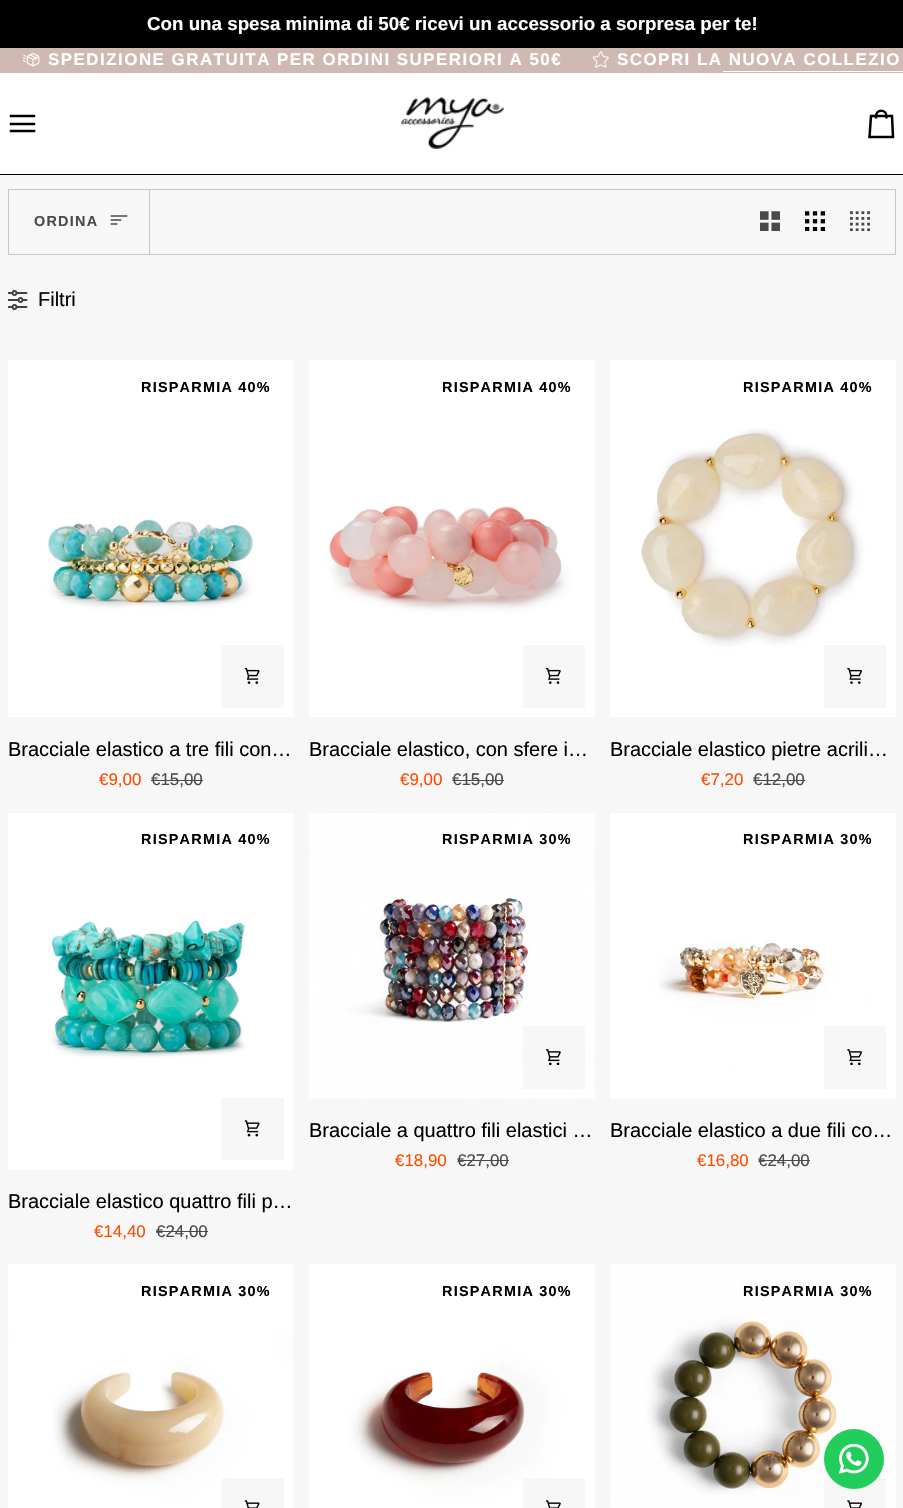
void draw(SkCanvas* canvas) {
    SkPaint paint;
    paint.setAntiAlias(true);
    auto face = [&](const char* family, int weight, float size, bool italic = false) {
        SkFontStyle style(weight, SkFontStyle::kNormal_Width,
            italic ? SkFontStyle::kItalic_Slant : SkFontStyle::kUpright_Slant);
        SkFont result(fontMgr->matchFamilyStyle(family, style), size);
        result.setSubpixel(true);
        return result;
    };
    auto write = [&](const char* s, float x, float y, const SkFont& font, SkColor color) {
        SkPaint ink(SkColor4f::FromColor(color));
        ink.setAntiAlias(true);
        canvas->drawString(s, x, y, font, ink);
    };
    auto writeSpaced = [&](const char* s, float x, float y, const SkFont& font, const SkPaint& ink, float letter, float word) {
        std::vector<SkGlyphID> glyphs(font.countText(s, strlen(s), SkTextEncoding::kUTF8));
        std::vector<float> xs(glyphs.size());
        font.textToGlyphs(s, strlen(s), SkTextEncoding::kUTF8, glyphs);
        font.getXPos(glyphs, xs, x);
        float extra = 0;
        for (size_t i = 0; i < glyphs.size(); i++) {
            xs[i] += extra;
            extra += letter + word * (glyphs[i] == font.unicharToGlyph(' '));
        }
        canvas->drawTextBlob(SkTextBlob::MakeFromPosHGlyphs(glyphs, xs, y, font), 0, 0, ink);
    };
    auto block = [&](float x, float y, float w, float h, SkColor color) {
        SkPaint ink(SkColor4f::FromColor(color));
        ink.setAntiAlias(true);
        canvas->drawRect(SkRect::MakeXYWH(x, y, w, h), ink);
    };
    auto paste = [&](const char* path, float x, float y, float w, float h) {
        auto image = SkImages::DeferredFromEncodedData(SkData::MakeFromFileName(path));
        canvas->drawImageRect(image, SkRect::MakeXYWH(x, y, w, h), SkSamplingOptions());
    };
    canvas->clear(SK_ColorWHITE);
    block(0, 0, 903, 48, SK_ColorBLACK);
    auto kFont1 = face("Liberation Sans", 700, 18.75f);
    write("Con una spesa minima di 50€ ricevi un accessorio a sorpresa per te!", 147, 30, kFont1, SK_ColorWHITE);
    block(0, 48, 903, 25, SkColorSetRGB(208, 185, 178));
    paste("pic1.png", 23, 53, 17, 14);
    auto kFont2 = face("Liberation Sans", 700, 16.9f);
    paint.setColor(SK_ColorWHITE);
    writeSpaced("SPEDIZIONE GRATUITA PER ORDINI SUPERIORI A 50€", 48, 65, kFont2, paint, 1.5f, 0);
    paste("pic2.png", 593, 51, 16, 17);
    writeSpaced("SCOPRI LA NUOVA COLLEZIO", 617, 65, kFont2, paint, 1.5f, 0);
    block(723, 71, 180, 1, SK_ColorWHITE);
    block(0, 174, 903, 1, SK_ColorBLACK);
    paint.setStyle(SkPaint::kStroke_Style);
    paint.setStrokeWidth(2.5f);
    paint.setStrokeCap(SkPaint::kSquare_Cap);
    paint.setColor(SK_ColorBLACK);
    canvas->drawPath(SkPathBuilder().moveTo(34, 116).lineTo(11, 116).moveTo(34, 124).lineTo(11, 124).moveTo(34, 131).lineTo(11, 131).detach(), paint);
    paste("pic3.png", 401, 97, 103, 52);
    paint.setStrokeCap(SkPaint::kButt_Cap);
    canvas->drawPath(SkPathBuilder().moveTo(886.5f, 118.5f).lineTo(886.5f, 116).lineTo(892, 116).lineTo(893, 137).lineTo(869.5f, 137).lineTo(871, 116).lineTo(876, 116).cubicTo(876, 109, 886.5f, 109, 886.5f, 116).lineTo(876, 116).lineTo(876, 118.5f).detach(), paint);
    block(0, 175, 903, 1333, SkColorSetRGB(247, 247, 247));
    paint.setStrokeWidth(1);
    paint.setColor(SkColorSetRGB(198, 198, 198));
    canvas->drawRect(SkRect::MakeXYWH(8.5f, 189.5f, 887, 65), paint);
    block(149, 190, 1, 64, SkColorSetRGB(198, 198, 198));
    auto kFont3 = face("Liberation Sans", 700, 14.4f);
    paint.setStyle(SkPaint::kFill_Style);
    paint.setColor(SkColorSetRGB(74, 74, 74));
    writeSpaced("ORDINA", 34, 226, kFont3, paint, 1.25f, 0);
    paint.setStyle(SkPaint::kStroke_Style);
    paint.setStrokeWidth(1.7f);
    paint.setStrokeCap(SkPaint::kSquare_Cap);
    canvas->drawPath(SkPathBuilder().moveTo(126.5f, 216).lineTo(111.5f, 216).moveTo(120.5f, 220).lineTo(111.5f, 220).moveTo(116.5f, 224).lineTo(111.5f, 224).detach(), paint);
    paste("pic4.png", 760, 211, 20, 20);
    paste("pic5.png", 805, 211, 20, 20);
    paste("pic6.png", 850, 211, 20, 20);
    paste("pic7.png", 8, 290, 20, 20);
    auto kFont4 = face("Liberation Sans", 400, 20);
    write("Filtri", 38, 306, kFont4, SK_ColorBLACK);
    paste("pic8.png", 8, 360, 286, 357);
    paint.setStyle(SkPaint::kFill_Style);
    paint.setColor(SK_ColorBLACK);
    writeSpaced("RISPARMIA 40%", 141, 392, kFont3, paint, 1.25f, 0);
    block(221, 645, 63, 63, SkColorSetRGB(247, 247, 247));
    paste("pic9.png", 244, 668, 16, 16);
    write("Bracciale elastico a tre fili con…", 8, 756, kFont4, SK_ColorBLACK);
    auto kFont5 = face("Liberation Sans", 400, 16.9f);
    write("€9,00", 99, 785, kFont5, SkColorSetRGB(255, 75, 0));
    write("€15,00", 151, 785, kFont5, SkColorSetRGB(74, 74, 74));
    block(151, 780, 52, 1, SkColorSetRGB(74, 74, 74));
    paste("pic10.png", 309, 360, 286, 357);
    writeSpaced("RISPARMIA 40%", 442, 392, kFont3, paint, 1.25f, 0);
    block(523, 645, 62, 63, SkColorSetRGB(247, 247, 247));
    paste("pic11.png", 546, 668, 15, 16);
    write("Bracciale elastico, con sfere i…", 309, 756, kFont4, SK_ColorBLACK);
    write("€9,00", 400, 785, kFont5, SkColorSetRGB(255, 75, 0));
    write("€15,00", 452, 785, kFont5, SkColorSetRGB(74, 74, 74));
    block(453, 780, 51, 1, SkColorSetRGB(74, 74, 74));
    paste("pic12.png", 610, 360, 286, 357);
    writeSpaced("RISPARMIA 40%", 743, 392, kFont3, paint, 1.25f, 0);
    block(824, 645, 62, 63, SkColorSetRGB(247, 247, 247));
    paste("pic13.png", 847, 668, 15, 16);
    write("Bracciale elastico pietre acrili…", 610, 756, kFont4, SK_ColorBLACK);
    write("€7,20", 701, 785, kFont5, SkColorSetRGB(255, 75, 0));
    write("€12,00", 753, 785, kFont5, SkColorSetRGB(74, 74, 74));
    block(754, 780, 51, 1, SkColorSetRGB(74, 74, 74));
    paste("pic14.png", 8, 813, 286, 357);
    writeSpaced("RISPARMIA 40%", 141, 844, kFont3, paint, 1.25f, 0);
    block(221, 1098, 63, 62, SkColorSetRGB(247, 247, 247));
    paste("pic15.png", 244, 1120, 16, 17);
    write("Bracciale elastico quattro fili p…", 8, 1208, kFont4, SK_ColorBLACK);
    write("€14,40", 94, 1237, kFont5, SkColorSetRGB(255, 75, 0));
    write("€24,00", 156, 1237, kFont5, SkColorSetRGB(74, 74, 74));
    block(156, 1231, 52, 1, SkColorSetRGB(74, 74, 74));
    paste("pic16.png", 309, 813, 286, 286);
    writeSpaced("RISPARMIA 30%", 442, 844, kFont3, paint, 1.25f, 0);
    block(523, 1026, 62, 63, SkColorSetRGB(247, 247, 247));
    paste("pic17.png", 546, 1049, 15, 16);
    write("Bracciale a quattro fili elastici …", 309, 1137, kFont4, SK_ColorBLACK);
    write("€18,90", 395, 1166, kFont5, SkColorSetRGB(255, 75, 0));
    write("€27,00", 457, 1166, kFont5, SkColorSetRGB(74, 74, 74));
    block(458, 1160, 51, 1, SkColorSetRGB(74, 74, 74));
    paste("pic18.png", 610, 813, 286, 286);
    writeSpaced("RISPARMIA 30%", 743, 844, kFont3, paint, 1.25f, 0);
    block(824, 1026, 62, 63, SkColorSetRGB(247, 247, 247));
    paste("pic19.png", 847, 1049, 15, 16);
    write("Bracciale elastico a due fili co…", 610, 1137, kFont4, SK_ColorBLACK);
    write("€16,80", 697, 1166, kFont5, SkColorSetRGB(255, 75, 0));
    write("€24,00", 758, 1166, kFont5, SkColorSetRGB(74, 74, 74));
    block(759, 1160, 51, 1, SkColorSetRGB(74, 74, 74));
    paste("pic20.png", 8, 1264, 286, 244);
    writeSpaced("RISPARMIA 30%", 141, 1296, kFont3, paint, 1.25f, 0);
    block(221, 1478, 63, 30, SkColorSetRGB(247, 247, 247));
    paste("pic21.png", 244, 1500, 16, 8);
    paste("pic22.png", 309, 1264, 286, 244);
    writeSpaced("RISPARMIA 30%", 442, 1296, kFont3, paint, 1.25f, 0);
    block(523, 1478, 62, 30, SkColorSetRGB(247, 247, 247));
    paste("pic23.png", 546, 1500, 15, 8);
    paste("pic24.png", 610, 1264, 286, 244);
    writeSpaced("RISPARMIA 30%", 743, 1296, kFont3, paint, 1.25f, 0);
    block(824, 1478, 62, 30, SkColorSetRGB(247, 247, 247));
    paste("pic25.png", 847, 1500, 15, 8);
    paint.setColor(SkColorSetRGB(34, 205, 91));
    canvas->drawCircle(854, 1459, 30, paint);
    paste("pic26.png", 839, 1444, 30, 30);
}
